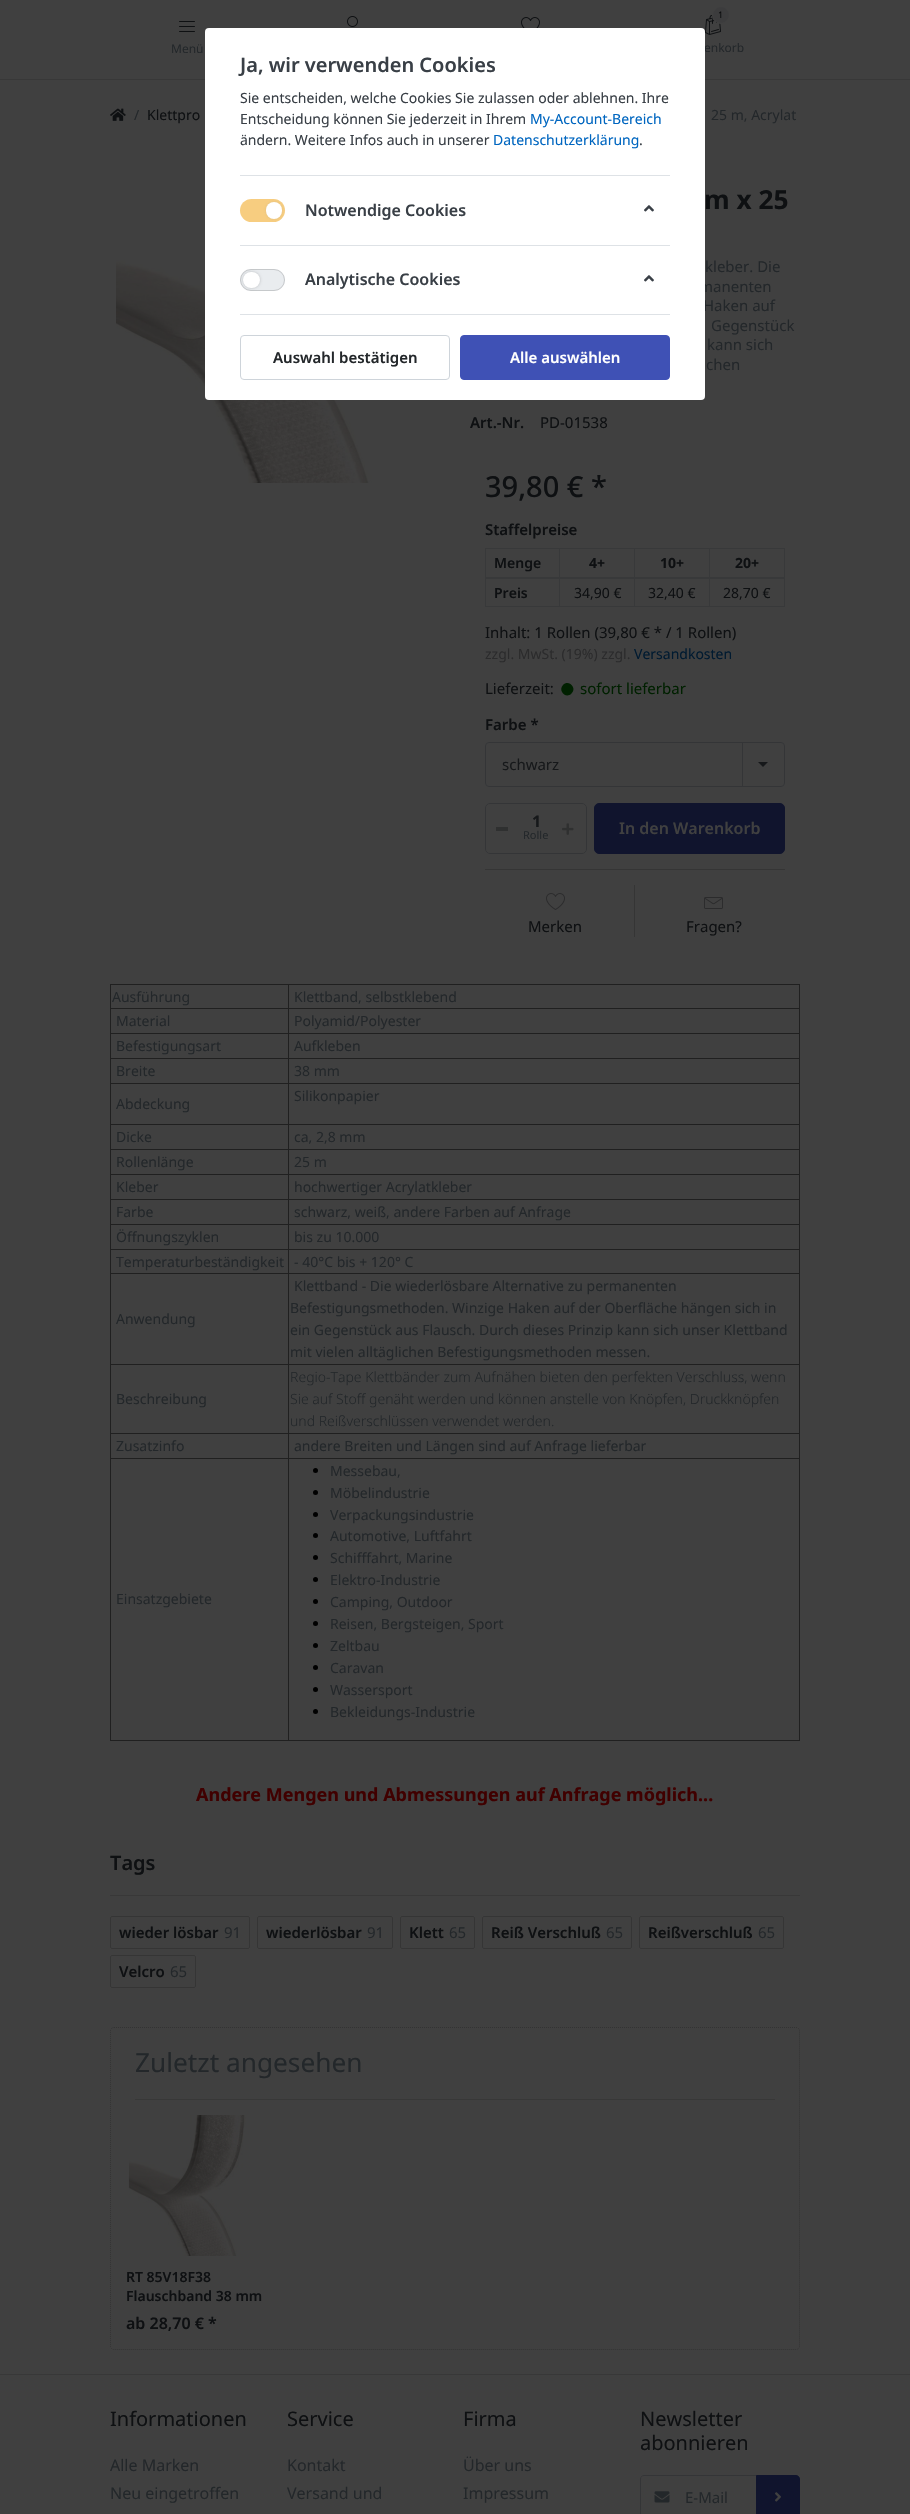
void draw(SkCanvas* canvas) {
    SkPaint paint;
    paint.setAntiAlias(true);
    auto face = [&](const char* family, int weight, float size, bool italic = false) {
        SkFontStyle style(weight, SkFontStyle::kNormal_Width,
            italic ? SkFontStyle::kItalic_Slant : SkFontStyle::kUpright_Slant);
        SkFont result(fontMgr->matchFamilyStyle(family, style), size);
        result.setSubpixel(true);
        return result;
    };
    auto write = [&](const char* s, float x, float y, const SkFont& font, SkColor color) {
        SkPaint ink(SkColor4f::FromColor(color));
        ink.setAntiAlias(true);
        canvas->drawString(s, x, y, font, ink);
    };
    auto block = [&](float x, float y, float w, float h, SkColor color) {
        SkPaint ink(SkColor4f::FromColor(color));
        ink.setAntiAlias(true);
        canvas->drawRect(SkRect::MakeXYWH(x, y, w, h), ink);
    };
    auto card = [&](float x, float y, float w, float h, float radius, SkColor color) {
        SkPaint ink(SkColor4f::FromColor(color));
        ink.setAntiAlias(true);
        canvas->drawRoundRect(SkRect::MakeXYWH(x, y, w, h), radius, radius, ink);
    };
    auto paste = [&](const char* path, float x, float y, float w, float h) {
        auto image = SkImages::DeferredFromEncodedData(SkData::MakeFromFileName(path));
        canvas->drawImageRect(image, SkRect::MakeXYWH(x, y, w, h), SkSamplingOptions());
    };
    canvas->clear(SkColorSetRGB(64, 64, 64));
    block(0, 79, 910, 1, SkColorSetRGB(56, 56, 56));
    paste("pic1.png", 347, 16, 11, 11);
    paste("pic2.png", 521, 17, 19, 11);
    paste("pic3.png", 705, 15, 16, 20);
    paint.setColor(SkColorSetRGB(60, 60, 61));
    canvas->drawCircle(721, 15, 8.5f, paint);
    paint.setStyle(SkPaint::kStroke_Style);
    paint.setStrokeWidth(1);
    paint.setColor(SkColorSetRGB(64, 64, 64));
    canvas->drawCircle(721, 15, 8.5f, paint);
    auto kFont1 = face("Noto Sans", 400, 9);
    write("1", 718, 18, kFont1, SkColorSetRGB(9, 10, 11));
    auto kFont2 = face("Noto Sans", 400, 12);
    write("enkorb", 704, 52, kFont2, SkColorSetRGB(35, 39, 42));
    paste("pic4.png", 179, 21, 16, 11);
    write("Menü", 171, 53, kFont2, SkColorSetRGB(35, 39, 42));
    paste("pic5.png", 110, 108, 16, 13);
    auto kFont3 = face("Noto Sans", 400, 14);
    write("/", 134, 120, kFont3, SkColorSetRGB(35, 39, 42));
    write("Klettpro", 147, 120, kFont3, SkColorSetRGB(14, 16, 18));
    write("25 m, Acrylat", 711, 120, kFont3, SkColorSetRGB(35, 39, 42));
    paste("pic6.png", 116, 153, 275, 330);
    auto kFont4 = face("Noto Sans", 700, 26.25f);
    write("m x 25", 704, 209, kFont4, SkColorSetRGB(14, 16, 18));
    auto kFont5 = face("Noto Sans", 400, 15);
    write("kleber. Die", 705, 272, kFont5, SkColorSetRGB(35, 39, 42));
    write("manenten", 699, 292, kFont5, SkColorSetRGB(35, 39, 42));
    write("Haken auf", 703, 311, kFont5, SkColorSetRGB(35, 39, 42));
    write("Gegenstück", 711, 331, kFont5, SkColorSetRGB(35, 39, 42));
    write("kann sich", 707, 350, kFont5, SkColorSetRGB(35, 39, 42));
    write("chen", 706, 370, kFont5, SkColorSetRGB(35, 39, 42));
    auto kFont6 = face("Noto Sans", 600, 15);
    write("Art.-Nr.", 470, 428, kFont6, SkColorSetRGB(14, 16, 18));
    write("PD-01538", 540, 428, kFont5, SkColorSetRGB(14, 16, 18));
    auto kFont7 = face("Noto Sans", 500, 29);
    write("39,80 € *", 485, 497, kFont7, SkColorSetRGB(14, 16, 18));
    write("Staffelpreise", 485, 535, kFont6, SkColorSetRGB(14, 16, 18));
    block(709, 548, 76, 1, SkColorSetRGB(56, 57, 58));
    block(784, 577, 1, 30, SkColorSetRGB(56, 57, 58));
    block(709, 606, 76, 1, SkColorSetRGB(56, 57, 58));
    block(709, 577, 1, 30, SkColorSetRGB(56, 57, 58));
    block(709, 548, 1, 30, SkColorSetRGB(56, 57, 58));
    block(634, 548, 76, 1, SkColorSetRGB(56, 57, 58));
    block(634, 606, 76, 1, SkColorSetRGB(56, 57, 58));
    block(634, 577, 1, 30, SkColorSetRGB(56, 57, 58));
    block(634, 548, 1, 30, SkColorSetRGB(56, 57, 58));
    block(559, 548, 76, 1, SkColorSetRGB(56, 57, 58));
    block(559, 606, 76, 1, SkColorSetRGB(56, 57, 58));
    block(559, 577, 1, 30, SkColorSetRGB(56, 57, 58));
    block(559, 548, 1, 30, SkColorSetRGB(56, 57, 58));
    block(485, 548, 75, 1, SkColorSetRGB(56, 57, 58));
    block(485, 606, 75, 1, SkColorSetRGB(56, 57, 58));
    block(485, 577, 1, 30, SkColorSetRGB(56, 57, 58));
    block(485, 548, 1, 30, SkColorSetRGB(56, 57, 58));
    auto kFont8 = face("Noto Sans", 600, 14);
    write("Menge", 494, 568, kFont8, SkColorSetRGB(14, 16, 18));
    auto kFont9 = face("Noto Sans", 700, 14);
    write("4+", 589, 568, kFont9, SkColorSetRGB(14, 16, 18));
    write("10+", 660, 568, kFont9, SkColorSetRGB(14, 16, 18));
    block(784, 548, 1, 30, SkColorSetRGB(56, 57, 58));
    block(485, 577, 300, 2, SkColorSetRGB(56, 57, 58));
    write("20+", 735, 568, kFont9, SkColorSetRGB(14, 16, 18));
    write("Preis", 494, 598, kFont8, SkColorSetRGB(14, 16, 18));
    write("34,90 €", 574, 598, kFont3, SkColorSetRGB(14, 16, 18));
    write("32,40 €", 648, 598, kFont3, SkColorSetRGB(14, 16, 18));
    write("28,70 €", 723, 598, kFont3, SkColorSetRGB(14, 16, 18));
    write("Inhalt: 1 Rollen (39,80 € * / 1 Rollen)", 485, 638, kFont5, SkColorSetRGB(14, 16, 18));
    write("zzgl. MwSt. (19%) zzgl.", 485, 659, kFont3, SkColorSetRGB(43, 43, 44));
    write("Versandkosten", 634, 659, kFont3, SkColorSetRGB(0, 26, 48));
    write("Lieferzeit:", 485, 694, kFont5, SkColorSetRGB(14, 16, 18));
    paint.setStyle(SkPaint::kFill_Style);
    paint.setColor(SkColorSetRGB(0, 32, 0));
    canvas->drawPath(SkPathBuilder().moveTo(563, 685).cubicTo(568.5f, 679, 577.5f, 688, 571.5f, 693.5f).cubicTo(566, 699.5f, 557.5f, 690.5f, 563, 685).close().detach(), paint);
    write("sofort lieferbar", 580, 694, kFont5, SkColorSetRGB(0, 32, 0));
    write("Farbe *", 485, 730, kFont6, SkColorSetRGB(14, 16, 18));
    paint.setStyle(SkPaint::kStroke_Style);
    paint.setColor(SkColorSetRGB(52, 53, 55));
    canvas->drawRoundRect(SkRect::MakeXYWH(485.5f, 742.5f, 299, 44), 3.5f, 3.5f, paint);
    write("schwarz", 502, 770, kFont5, SkColorSetRGB(22, 24, 26));
    block(742, 743, 1, 43, SkColorSetRGB(52, 53, 55));
    paint.setStyle(SkPaint::kFill_Style);
    paint.setColor(SkColorSetRGB(22, 24, 26));
    canvas->drawPath(SkPathBuilder().moveTo(758, 762).lineTo(768, 762).lineTo(763, 767).close().detach(), paint);
    paint.setStyle(SkPaint::kStroke_Style);
    paint.setColor(SkColorSetRGB(52, 53, 55));
    canvas->drawRoundRect(SkRect::MakeXYWH(485.5f, 803.5f, 101, 50), 4.5f, 4.5f, paint);
    auto kFont10 = face("Noto Sans", 700, 16);
    write("1", 532, 827, kFont10, SkColorSetRGB(22, 24, 26));
    block(496, 827, 12, 4, SkColorSetRGB(47, 48, 48));
    paste("pic7.png", 562, 823, 12, 12);
    auto kFont11 = face("Noto Sans", 400, 11);
    write("Rolle", 523, 839, kFont11, SkColorSetRGB(35, 39, 42));
    paint.setStyle(SkPaint::kFill_Style);
    paint.setColor(SkColorSetRGB(16, 20, 45));
    canvas->drawRoundRect(SkRect::MakeXYWH(594.5f, 803.5f, 190, 50), 4.5f, 4.5f, paint);
    paint.setStyle(SkPaint::kStroke_Style);
    canvas->drawRoundRect(SkRect::MakeXYWH(594.5f, 803.5f, 190, 50), 4.5f, 4.5f, paint);
    auto kFont12 = face("Noto Sans", 600, 16);
    write("In den Warenkorb", 619, 834, kFont12, SkColorSetRGB(64, 64, 64));
    block(485, 869, 300, 1, SkColorSetRGB(53, 53, 53));
    block(634, 885, 1, 52, SkColorSetRGB(53, 53, 53));
    paste("pic8.png", 546, 893, 19, 17);
    write("Merken", 528, 932, kFont5, SkColorSetRGB(14, 16, 18));
    paste("pic9.png", 704, 897, 19, 12);
    write("Fragen?", 686, 932, kFont5, SkColorSetRGB(14, 16, 18));
    block(110, 984, 690, 1, SkColorSetRGB(32, 32, 32));
    block(799, 984, 1, 757, SkColorSetRGB(32, 32, 32));
    block(110, 1740, 690, 1, SkColorSetRGB(32, 32, 32));
    block(110, 984, 1, 757, SkColorSetRGB(32, 32, 32));
    write("Ausführung", 112, 1002, kFont3, SkColorSetRGB(35, 39, 42));
    block(288, 1008, 512, 1, SkColorSetRGB(32, 32, 32));
    block(288, 1033, 512, 1, SkColorSetRGB(32, 32, 32));
    block(288, 1058, 512, 1, SkColorSetRGB(32, 32, 32));
    block(288, 1083, 512, 1, SkColorSetRGB(32, 32, 32));
    block(288, 1124, 512, 1, SkColorSetRGB(32, 32, 32));
    block(288, 1149, 512, 1, SkColorSetRGB(32, 32, 32));
    block(288, 1174, 512, 1, SkColorSetRGB(32, 32, 32));
    block(288, 1199, 512, 1, SkColorSetRGB(32, 32, 32));
    block(288, 1224, 512, 1, SkColorSetRGB(32, 32, 32));
    block(288, 1249, 512, 1, SkColorSetRGB(32, 32, 32));
    block(288, 1273, 512, 1, SkColorSetRGB(32, 32, 32));
    block(288, 1364, 512, 1, SkColorSetRGB(32, 32, 32));
    block(288, 1433, 512, 1, SkColorSetRGB(32, 32, 32));
    block(288, 1458, 512, 1, SkColorSetRGB(32, 32, 32));
    block(288, 1458, 1, 283, SkColorSetRGB(32, 32, 32));
    block(110, 1458, 179, 1, SkColorSetRGB(32, 32, 32));
    block(288, 1433, 1, 26, SkColorSetRGB(32, 32, 32));
    block(110, 1433, 179, 1, SkColorSetRGB(32, 32, 32));
    block(288, 1364, 1, 70, SkColorSetRGB(32, 32, 32));
    block(110, 1364, 179, 1, SkColorSetRGB(32, 32, 32));
    block(288, 1273, 1, 92, SkColorSetRGB(32, 32, 32));
    block(110, 1273, 179, 1, SkColorSetRGB(32, 32, 32));
    block(288, 1249, 1, 25, SkColorSetRGB(32, 32, 32));
    block(110, 1249, 179, 1, SkColorSetRGB(32, 32, 32));
    block(288, 1224, 1, 26, SkColorSetRGB(32, 32, 32));
    block(110, 1224, 179, 1, SkColorSetRGB(32, 32, 32));
    block(288, 1199, 1, 26, SkColorSetRGB(32, 32, 32));
    block(110, 1199, 179, 1, SkColorSetRGB(32, 32, 32));
    block(288, 1174, 1, 26, SkColorSetRGB(32, 32, 32));
    block(110, 1174, 179, 1, SkColorSetRGB(32, 32, 32));
    block(288, 1149, 1, 26, SkColorSetRGB(32, 32, 32));
    block(110, 1149, 179, 1, SkColorSetRGB(32, 32, 32));
    block(288, 1124, 1, 26, SkColorSetRGB(32, 32, 32));
    block(110, 1124, 179, 1, SkColorSetRGB(32, 32, 32));
    block(288, 1083, 1, 42, SkColorSetRGB(32, 32, 32));
    block(110, 1083, 179, 1, SkColorSetRGB(32, 32, 32));
    block(288, 1058, 1, 26, SkColorSetRGB(32, 32, 32));
    block(110, 1058, 179, 1, SkColorSetRGB(32, 32, 32));
    block(288, 1033, 1, 26, SkColorSetRGB(32, 32, 32));
    block(110, 1033, 179, 1, SkColorSetRGB(32, 32, 32));
    block(288, 1008, 1, 26, SkColorSetRGB(32, 32, 32));
    block(110, 1008, 179, 1, SkColorSetRGB(32, 32, 32));
    block(288, 984, 1, 25, SkColorSetRGB(32, 32, 32));
    write("Klettband, selbstklebend", 294, 1002, kFont3, SkColorSetRGB(35, 39, 42));
    write("Material", 116, 1026, kFont3, SkColorSetRGB(35, 39, 42));
    write("Polyamid/Polyester", 294, 1026, kFont3, SkColorSetRGB(35, 39, 42));
    write("Befestigungsart", 116, 1051, kFont3, SkColorSetRGB(35, 39, 42));
    write("Aufkleben", 294, 1051, kFont3, SkColorSetRGB(35, 39, 42));
    write("Breite", 116, 1076, kFont3, SkColorSetRGB(35, 39, 42));
    write("38 mm", 294, 1076, kFont3, SkColorSetRGB(35, 39, 42));
    write("Abdeckung", 116, 1109, kFont3, SkColorSetRGB(35, 39, 42));
    write("Silikonpapier", 294, 1101, kFont3, SkColorSetRGB(35, 39, 42));
    write("Dicke", 116, 1142, kFont3, SkColorSetRGB(35, 39, 42));
    write("ca, 2,8 mm", 294, 1142, kFont3, SkColorSetRGB(35, 39, 42));
    write("Rollenlänge", 116, 1167, kFont3, SkColorSetRGB(35, 39, 42));
    write("25 m", 294, 1167, kFont3, SkColorSetRGB(35, 39, 42));
    write("Kleber", 116, 1192, kFont3, SkColorSetRGB(35, 39, 42));
    write("hochwertiger Acrylatkleber", 294, 1192, kFont3, SkColorSetRGB(35, 39, 42));
    write("Farbe", 116, 1217, kFont3, SkColorSetRGB(35, 39, 42));
    write("schwarz, weiß, andere Farben auf Anfrage", 294, 1217, kFont3, SkColorSetRGB(35, 39, 42));
    write("Öffnungszyklen", 116, 1242, kFont3, SkColorSetRGB(35, 39, 42));
    write("bis zu 10.000", 294, 1242, kFont3, SkColorSetRGB(35, 39, 42));
    write("Temperaturbeständigkeit", 116, 1267, kFont3, SkColorSetRGB(35, 39, 42));
    write("- 40°C bis + 120° C", 294, 1267, kFont3, SkColorSetRGB(35, 39, 42));
    write("Anwendung", 116, 1324, kFont3, SkColorSetRGB(35, 39, 42));
    write("Klettband - Die wiederlösbare Alternative zu permanenten", 294, 1291, kFont3, SkColorSetRGB(35, 39, 42));
    write("Befestigungsmethoden. Winzige Haken auf der Oberfläche hängen sich in", 290, 1313, kFont3, SkColorSetRGB(35, 39, 42));
    write("ein Gegenstück aus Flausch. Durch dieses Prinzip kann sich unser Klettband", 290, 1335, kFont3, SkColorSetRGB(35, 39, 42));
    write("mit vielen alltäglichen Befestigungsmethoden messen.", 290, 1357, kFont3, SkColorSetRGB(35, 39, 42));
    write("Beschreibung", 116, 1404, kFont3, SkColorSetRGB(35, 39, 42));
    auto kFont13 = face("Noto Sans", 300, 14);
    write("Regio-Tape Klettbänder zum Aufnähen bieten den perfekten Verschluss, wenn", 290, 1382, kFont13, SkColorSetRGB(35, 39, 42));
    write("Sie auf Stoff genäht werden und können anstelle von Knöpfen, Druckknöpfen", 290, 1404, kFont13, SkColorSetRGB(35, 39, 42));
    write("und Reißverschlüssen verwendet werden.", 290, 1426, kFont13, SkColorSetRGB(35, 39, 42));
    write("Zusatzinfo", 116, 1451, kFont3, SkColorSetRGB(35, 39, 42));
    write("andere Breiten und Längen sind auf Anfrage lieferbar", 294, 1451, kFont3, SkColorSetRGB(35, 39, 42));
    write("Einsatzgebiete", 116, 1604, kFont3, SkColorSetRGB(35, 39, 42));
    paint.setStyle(SkPaint::kFill_Style);
    paint.setColor(SK_ColorBLACK);
    canvas->drawCircle(315.5f, 1470.5f, 2.5f, paint);
    write("Messebau,", 330, 1476, kFont3, SkColorSetRGB(35, 39, 42));
    canvas->drawCircle(315.5f, 1492.5f, 2.5f, paint);
    write("Möbelindustrie", 330, 1498, kFont3, SkColorSetRGB(35, 39, 42));
    canvas->drawCircle(315.5f, 1514.5f, 2.5f, paint);
    write("Verpackungsindustrie", 330, 1520, kFont3, SkColorSetRGB(35, 39, 42));
    canvas->drawCircle(315.5f, 1535.5f, 2.5f, paint);
    write("Automotive, Luftfahrt", 330, 1541, kFont3, SkColorSetRGB(35, 39, 42));
    canvas->drawCircle(315.5f, 1557.5f, 2.5f, paint);
    write("Schifffahrt, Marine", 330, 1563, kFont3, SkColorSetRGB(35, 39, 42));
    canvas->drawCircle(315.5f, 1579.5f, 2.5f, paint);
    write("Elektro-Industrie", 330, 1585, kFont3, SkColorSetRGB(35, 39, 42));
    canvas->drawCircle(315.5f, 1601.5f, 2.5f, paint);
    write("Camping, Outdoor", 330, 1607, kFont3, SkColorSetRGB(35, 39, 42));
    canvas->drawCircle(315.5f, 1623.5f, 2.5f, paint);
    write("Reisen, Bergsteigen, Sport", 330, 1629, kFont3, SkColorSetRGB(35, 39, 42));
    canvas->drawCircle(315.5f, 1645.5f, 2.5f, paint);
    write("Zeltbau", 330, 1651, kFont3, SkColorSetRGB(35, 39, 42));
    canvas->drawCircle(315.5f, 1667.5f, 2.5f, paint);
    write("Caravan", 330, 1673, kFont3, SkColorSetRGB(35, 39, 42));
    canvas->drawCircle(315.5f, 1689.5f, 2.5f, paint);
    write("Wassersport", 330, 1695, kFont3, SkColorSetRGB(35, 39, 42));
    canvas->drawCircle(315.5f, 1711.5f, 2.5f, paint);
    write("Bekleidungs-Industrie", 330, 1717, kFont3, SkColorSetRGB(35, 39, 42));
    auto kFont14 = face("Noto Sans", 700, 18);
    write("Andere Mengen und Abmessungen auf Anfrage möglich...", 196, 1801, kFont14, SkColorSetRGB(64, 0, 0));
    block(110, 1895, 690, 1, SkColorSetRGB(56, 56, 56));
    auto kFont15 = face("Noto Sans", 600, 20);
    write("Tags", 110, 1870, kFont15, SkColorSetRGB(14, 16, 18));
    paint.setStyle(SkPaint::kStroke_Style);
    paint.setColor(SkColorSetRGB(53, 53, 53));
    canvas->drawRoundRect(SkRect::MakeXYWH(110.5f, 1916.5f, 139, 32), 1.5f, 1.5f, paint);
    write("wieder lösbar", 119, 1938, kFont6, SkColorSetRGB(14, 16, 18));
    write("91", 224, 1938, kFont5, SkColorSetRGB(35, 39, 42));
    canvas->drawRoundRect(SkRect::MakeXYWH(257.5f, 1916.5f, 135, 32), 1.5f, 1.5f, paint);
    write("wiederlösbar", 266, 1938, kFont6, SkColorSetRGB(14, 16, 18));
    write("91", 367, 1938, kFont5, SkColorSetRGB(35, 39, 42));
    canvas->drawRoundRect(SkRect::MakeXYWH(400.5f, 1916.5f, 74, 32), 1.5f, 1.5f, paint);
    write("Klett", 409, 1938, kFont6, SkColorSetRGB(14, 16, 18));
    write("65", 449, 1938, kFont5, SkColorSetRGB(35, 39, 42));
    canvas->drawRoundRect(SkRect::MakeXYWH(482.5f, 1916.5f, 149, 32), 1.5f, 1.5f, paint);
    write("Reiß Verschluß", 491, 1938, kFont6, SkColorSetRGB(14, 16, 18));
    write("65", 606, 1938, kFont5, SkColorSetRGB(35, 39, 42));
    canvas->drawRoundRect(SkRect::MakeXYWH(639.5f, 1916.5f, 144, 32), 1.5f, 1.5f, paint);
    write("Reißverschluß", 648, 1938, kFont6, SkColorSetRGB(14, 16, 18));
    write("65", 758, 1938, kFont5, SkColorSetRGB(35, 39, 42));
    canvas->drawRoundRect(SkRect::MakeXYWH(110.5f, 1955.5f, 85, 32), 1.5f, 1.5f, paint);
    write("Velcro", 119, 1977, kFont6, SkColorSetRGB(14, 16, 18));
    write("65", 170, 1977, kFont5, SkColorSetRGB(35, 39, 42));
    paint.setColor(SkColorSetRGB(51, 51, 51));
    paint.setPathEffect(SkDashPathEffect::Make({{1, 1}}, 0));
    canvas->drawPath(SkPathBuilder().moveTo(114, 2027.5f).lineTo(796, 2027.5f).cubicTo(798, 2027.5f, 799.5f, 2029, 799.5f, 2031).lineTo(799.5f, 2346).cubicTo(799.5f, 2348, 798, 2349.5f, 796, 2349.5f).lineTo(114, 2349.5f).cubicTo(112, 2349.5f, 110.5f, 2348, 110.5f, 2346).lineTo(110.5f, 2031).cubicTo(110.5f, 2029, 112, 2027.5f, 114, 2027.5f).close().detach(), paint);
    paint.setPathEffect(nullptr);
    block(135, 2099, 640, 1, SkColorSetRGB(56, 56, 56));
    auto kFont16 = face("Noto Sans", 400, 26.25f);
    write("Zuletzt angesehen", 135, 2072, kFont16, SkColorSetRGB(35, 39, 42));
    paste("pic10.png", 128, 2115, 118, 141);
    write("RT 85V18F38", 126, 2282, kFont8, SkColorSetRGB(14, 16, 18));
    write("Flauschband 38 mm", 126, 2301, kFont8, SkColorSetRGB(14, 16, 18));
    write("ab 28,70 € *", 126, 2329, kFont12, SkColorSetRGB(14, 16, 18));
    block(0, 2374, 910, 1, SkColorSetRGB(56, 56, 56));
    auto kFont17 = face("Noto Sans", 400, 20);
    write("Informationen", 110, 2426, kFont17, SkColorSetRGB(14, 16, 18));
    auto kFont18 = face("Noto Sans", 400, 16);
    write("Alle Marken", 110, 2471, kFont18, SkColorSetRGB(35, 39, 42));
    write("Neu eingetroffen", 110, 2499, kFont18, SkColorSetRGB(35, 39, 42));
    write("Service", 287, 2426, kFont17, SkColorSetRGB(14, 16, 18));
    write("Kontakt", 287, 2471, kFont18, SkColorSetRGB(35, 39, 42));
    write("Versand und", 287, 2499, kFont18, SkColorSetRGB(35, 39, 42));
    write("Firma", 463, 2426, kFont17, SkColorSetRGB(14, 16, 18));
    write("Über uns", 463, 2471, kFont18, SkColorSetRGB(35, 39, 42));
    write("Impressum", 463, 2499, kFont18, SkColorSetRGB(35, 39, 42));
    write("Newsletter", 640, 2426, kFont17, SkColorSetRGB(14, 16, 18));
    write("abonnieren", 640, 2450, kFont17, SkColorSetRGB(14, 16, 18));
    paint.setColor(SkColorSetRGB(52, 53, 55));
    canvas->drawPath(SkPathBuilder().moveTo(644, 2475.5f).lineTo(756.5f, 2475.5f).lineTo(756.5f, 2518.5f).lineTo(644, 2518.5f).cubicTo(642, 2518.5f, 640.5f, 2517, 640.5f, 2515).lineTo(640.5f, 2479).cubicTo(640.5f, 2477, 642, 2475.5f, 644, 2475.5f).close().detach(), paint);
    paste("pic11.png", 654, 2491, 16, 12);
    write("E-Mail", 685, 2503, kFont5, SkColorSetRGB(35, 39, 42));
    paint.setStyle(SkPaint::kFill_Style);
    paint.setColor(SkColorSetRGB(16, 20, 45));
    canvas->drawPath(SkPathBuilder().moveTo(756.5f, 2475.5f).lineTo(796, 2475.5f).cubicTo(798, 2475.5f, 799.5f, 2477, 799.5f, 2479).lineTo(799.5f, 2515).cubicTo(799.5f, 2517, 798, 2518.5f, 796, 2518.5f).lineTo(756.5f, 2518.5f).close().detach(), paint);
    paint.setStyle(SkPaint::kStroke_Style);
    canvas->drawPath(SkPathBuilder().moveTo(756.5f, 2475.5f).lineTo(796, 2475.5f).cubicTo(798, 2475.5f, 799.5f, 2477, 799.5f, 2479).lineTo(799.5f, 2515).cubicTo(799.5f, 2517, 798, 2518.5f, 796, 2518.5f).lineTo(756.5f, 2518.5f).close().detach(), paint);
    paste("pic12.png", 775, 2492, 6, 10);
    card(205, 28, 500, 372, 4, SK_ColorWHITE);
    write("Ja, wir verwenden Cookies", 240, 72, kFont15, SkColorSetRGB(57, 63, 70));
    write("Sie entscheiden, welche Cookies Sie zulassen oder ablehnen. Ihre", 240, 103, kFont3, SkColorSetRGB(57, 63, 70));
    write("Entscheidung können Sie jederzeit in Ihrem", 240, 124, kFont3, SkColorSetRGB(57, 63, 70));
    write("My-Account-Bereich", 530, 124, kFont3, SkColorSetRGB(0, 102, 192));
    write("ändern. Weitere Infos auch in unserer", 240, 145, kFont3, SkColorSetRGB(57, 63, 70));
    write("Datenschutzerklärung", 493, 145, kFont3, SkColorSetRGB(0, 102, 192));
    write(".", 639, 145, kFont3, SkColorSetRGB(57, 63, 70));
    block(240, 175, 430, 1, SkColorSetRGB(222, 226, 230));
    block(240, 245, 430, 1, SkColorSetRGB(222, 226, 230));
    card(240, 199, 45, 23, 11.5f, SkColorSetRGB(247, 205, 128));
    paint.setStyle(SkPaint::kFill_Style);
    paint.setColor(SkColorSetARGB(51, 128, 128, 128));
    paint.setMaskFilter(SkMaskFilter::MakeBlur(kNormal_SkBlurStyle, 1.5f));
    canvas->drawRoundRect(SkRect::MakeXYWH(266, 202, 16, 17), 8, 8, paint);
    paint.setMaskFilter(nullptr);
    card(266, 202, 16, 17, 8, SK_ColorWHITE);
    write("Notwendige Cookies", 305, 216, kFont12, SkColorSetRGB(57, 63, 70));
    paste("pic13.png", 644, 205, 10, 7);
    block(240, 314, 430, 1, SkColorSetRGB(222, 226, 230));
    card(240, 269, 45, 22, 11, SkColorSetRGB(233, 236, 239));
    paint.setStyle(SkPaint::kStroke_Style);
    paint.setColor(SkColorSetARGB(38, 0, 0, 0));
    canvas->drawRoundRect(SkRect::MakeXYWH(240.5f, 269.5f, 44, 21), 10.5f, 10.5f, paint);
    paint.setStyle(SkPaint::kFill_Style);
    paint.setColor(SkColorSetARGB(51, 0, 0, 0));
    paint.setMaskFilter(SkMaskFilter::MakeBlur(kNormal_SkBlurStyle, 1.5f));
    canvas->drawRoundRect(SkRect::MakeXYWH(243, 272, 17, 16), 8, 8, paint);
    paint.setMaskFilter(nullptr);
    card(243, 272, 17, 16, 8, SK_ColorWHITE);
    write("Analytische Cookies", 305, 285, kFont12, SkColorSetRGB(57, 63, 70));
    paste("pic13.png", 644, 275, 10, 7);
    paint.setStyle(SkPaint::kStroke_Style);
    paint.setColor(SkColorSetRGB(206, 212, 218));
    canvas->drawRoundRect(SkRect::MakeXYWH(240.5f, 335.5f, 209, 44), 3.5f, 3.5f, paint);
    write("Auswahl bestätigen", 273, 363, kFont6, SkColorSetRGB(35, 39, 42));
    paint.setStyle(SkPaint::kFill_Style);
    paint.setColor(SkColorSetRGB(63, 81, 181));
    canvas->drawRoundRect(SkRect::MakeXYWH(460.5f, 335.5f, 209, 44), 3.5f, 3.5f, paint);
    paint.setStyle(SkPaint::kStroke_Style);
    canvas->drawRoundRect(SkRect::MakeXYWH(460.5f, 335.5f, 209, 44), 3.5f, 3.5f, paint);
    write("Alle auswählen", 510, 363, kFont6, SK_ColorWHITE);
}
